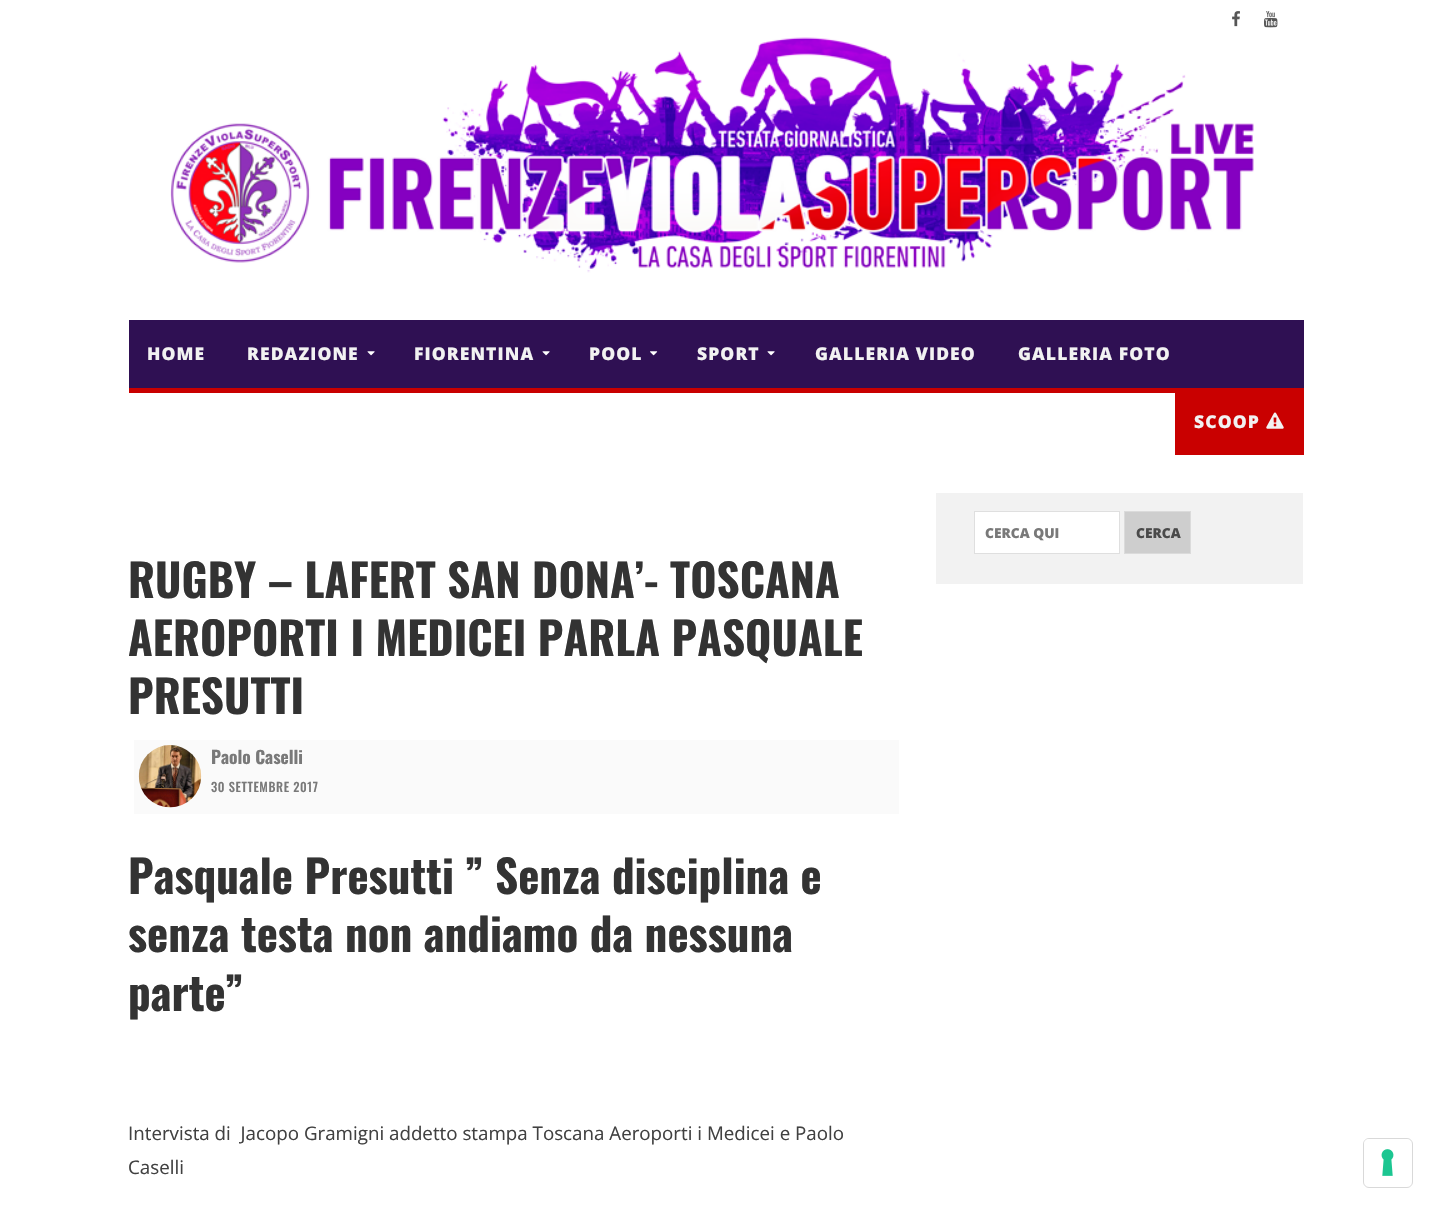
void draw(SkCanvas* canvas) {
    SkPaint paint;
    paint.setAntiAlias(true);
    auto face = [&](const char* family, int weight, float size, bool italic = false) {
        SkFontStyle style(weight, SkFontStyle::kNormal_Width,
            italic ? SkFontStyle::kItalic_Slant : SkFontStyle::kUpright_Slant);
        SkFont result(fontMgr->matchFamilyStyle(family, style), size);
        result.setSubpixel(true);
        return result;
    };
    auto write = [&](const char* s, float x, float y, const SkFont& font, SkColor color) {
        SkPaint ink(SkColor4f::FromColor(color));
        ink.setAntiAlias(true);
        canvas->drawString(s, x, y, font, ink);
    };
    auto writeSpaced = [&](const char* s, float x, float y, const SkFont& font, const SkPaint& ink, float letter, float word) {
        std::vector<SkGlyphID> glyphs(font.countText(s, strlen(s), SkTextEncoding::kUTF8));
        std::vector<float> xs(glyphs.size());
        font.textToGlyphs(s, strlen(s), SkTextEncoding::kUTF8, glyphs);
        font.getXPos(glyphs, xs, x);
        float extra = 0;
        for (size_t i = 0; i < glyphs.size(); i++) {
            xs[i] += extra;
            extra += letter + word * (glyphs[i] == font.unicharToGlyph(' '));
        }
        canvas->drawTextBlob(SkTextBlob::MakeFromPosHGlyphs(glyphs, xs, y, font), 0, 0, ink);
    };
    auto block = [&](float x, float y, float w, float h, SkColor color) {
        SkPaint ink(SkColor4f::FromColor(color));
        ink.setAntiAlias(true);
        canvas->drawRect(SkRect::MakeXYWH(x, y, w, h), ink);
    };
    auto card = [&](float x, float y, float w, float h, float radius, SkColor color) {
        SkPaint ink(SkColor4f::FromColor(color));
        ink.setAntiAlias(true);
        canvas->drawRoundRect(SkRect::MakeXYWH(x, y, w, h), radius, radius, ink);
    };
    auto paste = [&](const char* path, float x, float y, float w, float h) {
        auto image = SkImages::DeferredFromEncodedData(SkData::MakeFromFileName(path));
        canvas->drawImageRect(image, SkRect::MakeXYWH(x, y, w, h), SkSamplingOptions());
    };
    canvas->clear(SK_ColorWHITE);
    paste("pic1.png", 1232, 11, 8, 16);
    paste("pic2.png", 1264, 11, 14, 17);
    paste("pic3.png", 170, 37, 1084, 236);
    block(129, 320, 1175, 68, SkColorSetRGB(47, 16, 83));
    block(129, 388, 1046, 5, SkColorSetRGB(201, 0, 0));
    auto kFont1 = face("Open Sans", 800, 17.5f);
    paint.setColor(SkColorSetRGB(242, 242, 242));
    writeSpaced("HOME", 147, 360, kFont1, paint, 1.1f, 0);
    writeSpaced("REDAZIONE", 247, 360, kFont1, paint, 1.1f, 0);
    paste("pic4.png", 367, 351, 8, 5);
    writeSpaced("FIORENTINA", 414, 360, kFont1, paint, 1.1f, 0);
    paste("pic4.png", 542, 351, 8, 5);
    writeSpaced("POOL", 589, 360, kFont1, paint, 1.1f, 0);
    paste("pic5.png", 650, 351, 8, 5);
    writeSpaced("SPORT", 697, 360, kFont1, paint, 1.1f, 0);
    paste("pic4.png", 767, 351, 8, 5);
    writeSpaced("GALLERIA VIDEO", 815, 360, kFont1, paint, 1.1f, 0);
    writeSpaced("GALLERIA FOTO", 1018, 360, kFont1, paint, 1.1f, 0);
    block(1175, 388, 129, 67, SkColorSetRGB(201, 0, 0));
    writeSpaced("SCOOP", 1194, 428, kFont1, paint, 1.1f, 0);
    paste("pic6.png", 1266, 412, 18, 17);
    block(936, 493, 367, 91, SkColorSetRGB(242, 242, 242));
    paint.setColor(SK_ColorWHITE);
    canvas->drawRect(SkRect::MakeXYWH(974.5f, 511.5f, 145, 42), paint);
    paint.setStyle(SkPaint::kStroke_Style);
    paint.setStrokeWidth(1);
    paint.setColor(SkColorSetRGB(223, 223, 223));
    canvas->drawRect(SkRect::MakeXYWH(974.5f, 511.5f, 145, 42), paint);
    auto kFont2 = face("Open Sans", 800, 13.75f);
    write("CERCA QUI", 985, 538, kFont2, SkColorSetRGB(121, 121, 121));
    paint.setStyle(SkPaint::kFill_Style);
    paint.setColor(SkColorSetRGB(206, 206, 206));
    canvas->drawRect(SkRect::MakeXYWH(1124.5f, 511.5f, 66, 42), paint);
    paint.setStyle(SkPaint::kStroke_Style);
    paint.setColor(SkColorSetRGB(219, 219, 219));
    canvas->drawRect(SkRect::MakeXYWH(1124.5f, 511.5f, 66, 42), paint);
    write("CERCA", 1136, 538, kFont2, SkColorSetRGB(74, 74, 74));
    auto kFont3 = face("Oswald", 700, 45);
    write("RUGBY – LAFERT SAN DONA’- TOSCANA", 128, 598, kFont3, SkColorSetRGB(51, 51, 51));
    write("AEROPORTI I MEDICEI PARLA PASQUALE", 128, 656, kFont3, SkColorSetRGB(51, 51, 51));
    write("PRESUTTI", 128, 714, kFont3, SkColorSetRGB(51, 51, 51));
    block(134, 740, 765, 74, SkColorSetRGB(250, 250, 250));
    paste("pic7.png", 138, 745, 64, 63);
    auto kFont4 = face("Oswald", 700, 17.5f);
    write("Paolo Caselli", 211, 764, kFont4, SkColorSetRGB(121, 121, 121));
    auto kFont5 = face("Oswald", 500, 12.5f);
    paint.setStyle(SkPaint::kFill_Style);
    paint.setColor(SkColorSetRGB(121, 121, 121));
    writeSpaced("30 SETTEMBRE 2017", 211, 792, kFont5, paint, 0.6f, 0);
    write("Pasquale Presutti ” Senza disciplina e", 128, 894, kFont3, SkColorSetRGB(51, 51, 51));
    write("senza testa non andiamo da nessuna", 128, 952, kFont3, SkColorSetRGB(51, 51, 51));
    write("parte”", 128, 1011, kFont3, SkColorSetRGB(51, 51, 51));
    auto kFont6 = face("Open Sans", 400, 18.75f);
    write("Intervista di  Jacopo Gramigni addetto stampa Toscana Aeroporti i Medicei e Paolo", 128, 1140, kFont6, SkColorSetRGB(65, 65, 65));
    write("Caselli", 128, 1174, kFont6, SkColorSetRGB(65, 65, 65));
    paint.setStyle(SkPaint::kStroke_Style);
    paint.setColor(SkColorSetRGB(217, 217, 217));
    canvas->drawRoundRect(SkRect::MakeXYWH(1363.5f, 1138.5f, 49, 49), 5.5f, 5.5f, paint);
    card(1364, 1139, 47, 47, 5, SK_ColorWHITE);
    paste("pic8.png", 1381, 1149, 13, 27);
}
